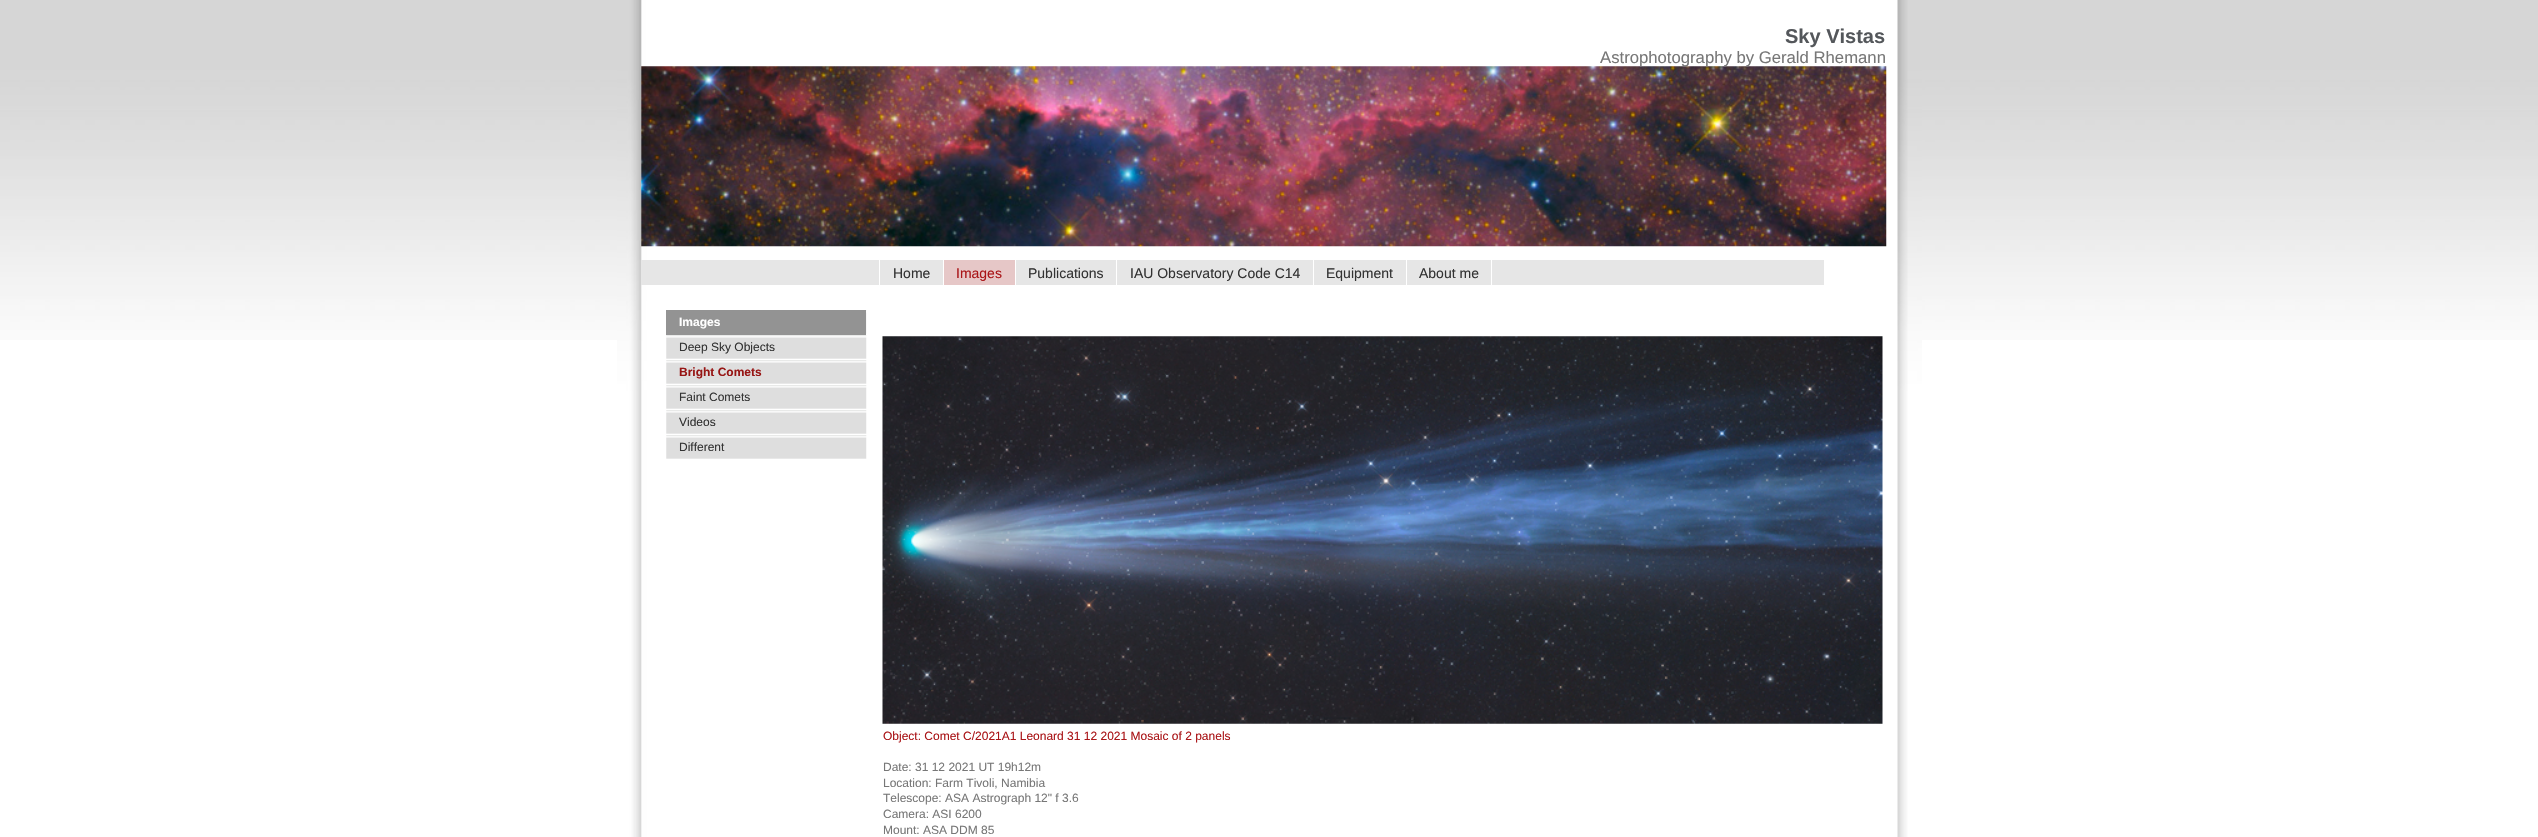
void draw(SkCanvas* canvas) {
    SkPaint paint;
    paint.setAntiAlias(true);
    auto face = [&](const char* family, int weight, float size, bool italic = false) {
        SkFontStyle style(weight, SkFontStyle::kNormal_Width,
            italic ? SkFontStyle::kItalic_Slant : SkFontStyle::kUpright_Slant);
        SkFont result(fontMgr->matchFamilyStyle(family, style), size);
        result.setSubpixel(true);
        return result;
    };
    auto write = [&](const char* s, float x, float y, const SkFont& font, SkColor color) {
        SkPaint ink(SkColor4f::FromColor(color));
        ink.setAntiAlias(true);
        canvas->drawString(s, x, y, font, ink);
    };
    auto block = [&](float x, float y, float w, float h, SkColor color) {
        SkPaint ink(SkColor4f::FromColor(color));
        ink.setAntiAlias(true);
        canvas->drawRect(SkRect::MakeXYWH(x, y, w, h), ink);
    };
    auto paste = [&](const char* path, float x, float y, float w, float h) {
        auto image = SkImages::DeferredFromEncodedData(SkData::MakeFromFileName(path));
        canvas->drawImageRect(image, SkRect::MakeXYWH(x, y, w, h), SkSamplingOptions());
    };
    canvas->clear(SK_ColorWHITE);
    paste("pic1.png", 0, 0, 2538, 340);
    paste("pic2.png", 617, 0, 1305, 837);
    auto kFont1 = face("Liberation Sans", 700, 20);
    write("Sky Vistas", 1785, 43, kFont1, SkColorSetRGB(84, 87, 91));
    paste("pic3.png", 641, 66, 1246, 181);
    auto kFont2 = face("Liberation Sans", 400, 16.7f);
    write("Astrophotography by Gerald Rhemann", 1600, 63, kFont2, SkColorSetRGB(119, 119, 119));
    block(641, 260, 238, 25, SkColorSetRGB(230, 230, 230));
    block(880, 260, 63, 25, SkColorSetRGB(230, 230, 230));
    auto kFont3 = face("Liberation Sans", 400, 14);
    write("Home", 893, 278, kFont3, SkColorSetRGB(51, 51, 51));
    block(944, 260, 71, 25, SkColorSetRGB(230, 199, 199));
    write("Images", 956, 278, kFont3, SkColorSetRGB(170, 21, 24));
    block(1016, 260, 297, 25, SkColorSetRGB(230, 230, 230));
    block(1116, 260, 1, 25, SK_ColorWHITE);
    write("Publications", 1028, 278, kFont3, SkColorSetRGB(51, 51, 51));
    write("IAU Observatory Code C14", 1130, 278, kFont3, SkColorSetRGB(51, 51, 51));
    block(1314, 260, 510, 25, SkColorSetRGB(230, 230, 230));
    block(1406, 260, 1, 25, SK_ColorWHITE);
    write("Equipment", 1326, 278, kFont3, SkColorSetRGB(51, 51, 51));
    block(1491, 260, 1, 25, SK_ColorWHITE);
    write("About me", 1419, 278, kFont3, SkColorSetRGB(51, 51, 51));
    paste("pic4.png", 866, 310, 1, 24);
    block(666, 310, 200, 25, SkColorSetRGB(147, 147, 147));
    auto kFont4 = face("Liberation Sans", 700, 12);
    write("Images", 679, 326, kFont4, SK_ColorWHITE);
    paste("pic5.png", 666, 335, 201, 24);
    auto kFont5 = face("Liberation Sans", 400, 12);
    write("Deep Sky Objects", 679, 351, kFont5, SkColorSetRGB(51, 51, 51));
    paste("pic5.png", 666, 360, 201, 24);
    write("Bright Comets", 679, 376, kFont4, SkColorSetRGB(151, 22, 21));
    paste("pic5.png", 666, 385, 201, 24);
    write("Faint Comets", 679, 401, kFont5, SkColorSetRGB(51, 51, 51));
    paste("pic5.png", 666, 410, 201, 24);
    write("Videos", 679, 426, kFont5, SkColorSetRGB(51, 51, 51));
    paste("pic5.png", 666, 435, 201, 24);
    write("Different", 679, 451, kFont5, SkColorSetRGB(51, 51, 51));
    paste("pic6.png", 882, 336, 1001, 388);
    write("Object: Comet C/2021A1 Leonard 31 12 2021 Mosaic of 2 panels", 883, 740, kFont5, SkColorSetRGB(170, 21, 24));
    write("Date: 31 12 2021 UT 19h12m", 883, 771, kFont5, SkColorSetRGB(119, 119, 119));
    write("Location: Farm Tivoli, Namibia", 883, 787, kFont5, SkColorSetRGB(119, 119, 119));
    write("Telescope: ASA Astrograph 12\" f 3.6", 883, 802, kFont5, SkColorSetRGB(119, 119, 119));
    write("Camera: ASI 6200", 883, 818, kFont5, SkColorSetRGB(119, 119, 119));
    write("Mount: ASA DDM 85", 883, 834, kFont5, SkColorSetRGB(119, 119, 119));
}
